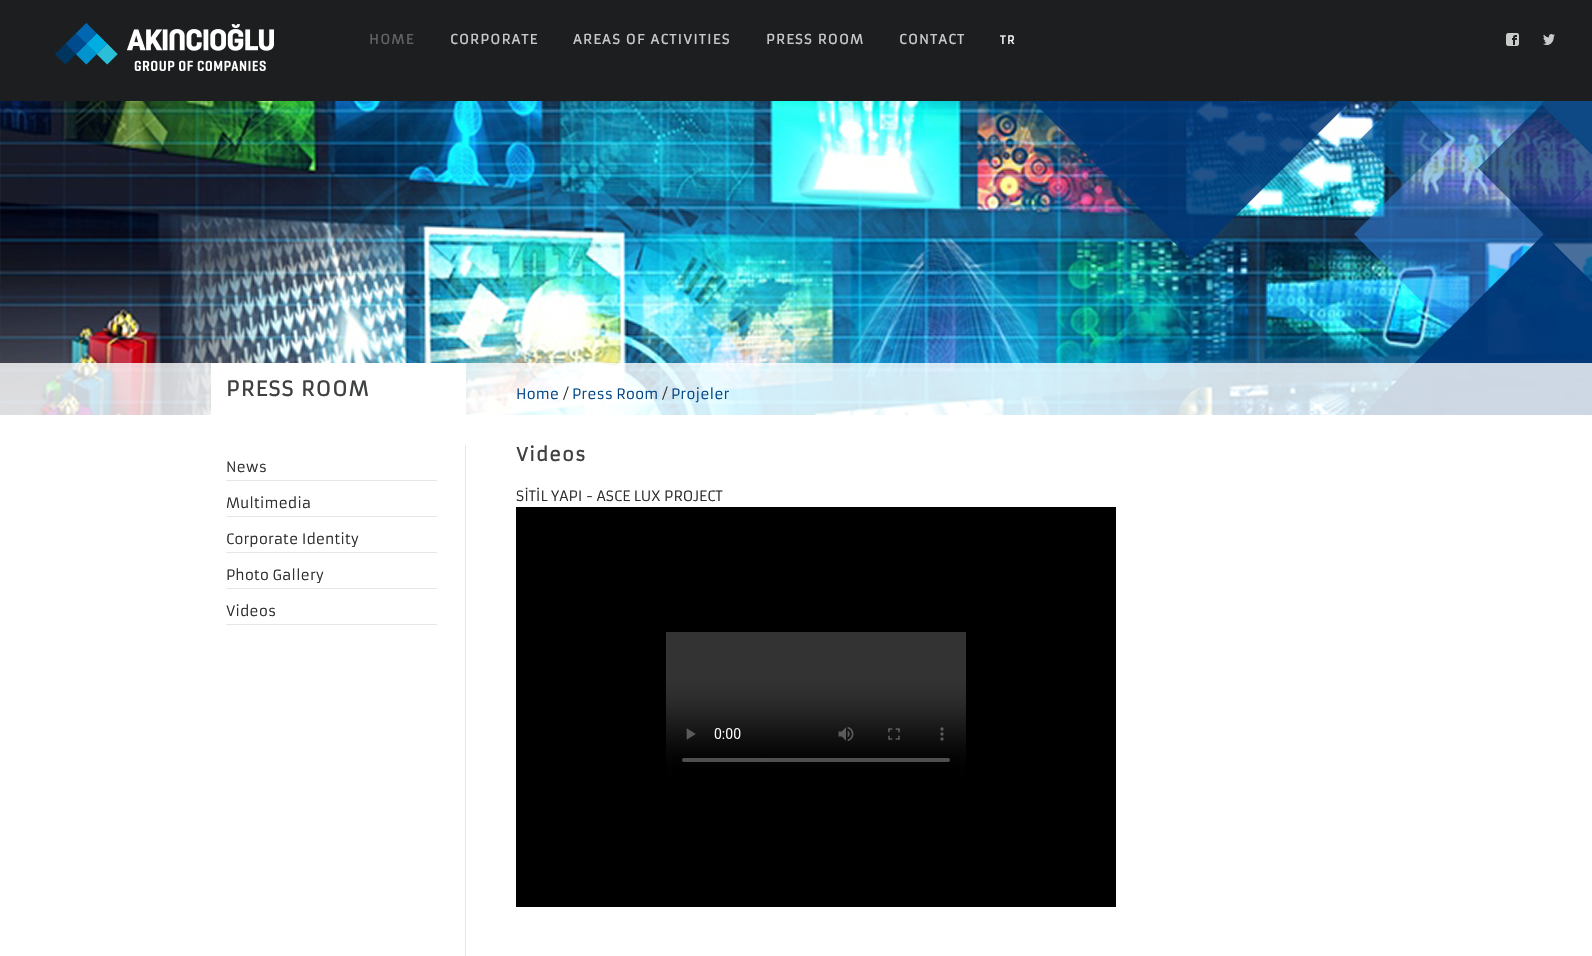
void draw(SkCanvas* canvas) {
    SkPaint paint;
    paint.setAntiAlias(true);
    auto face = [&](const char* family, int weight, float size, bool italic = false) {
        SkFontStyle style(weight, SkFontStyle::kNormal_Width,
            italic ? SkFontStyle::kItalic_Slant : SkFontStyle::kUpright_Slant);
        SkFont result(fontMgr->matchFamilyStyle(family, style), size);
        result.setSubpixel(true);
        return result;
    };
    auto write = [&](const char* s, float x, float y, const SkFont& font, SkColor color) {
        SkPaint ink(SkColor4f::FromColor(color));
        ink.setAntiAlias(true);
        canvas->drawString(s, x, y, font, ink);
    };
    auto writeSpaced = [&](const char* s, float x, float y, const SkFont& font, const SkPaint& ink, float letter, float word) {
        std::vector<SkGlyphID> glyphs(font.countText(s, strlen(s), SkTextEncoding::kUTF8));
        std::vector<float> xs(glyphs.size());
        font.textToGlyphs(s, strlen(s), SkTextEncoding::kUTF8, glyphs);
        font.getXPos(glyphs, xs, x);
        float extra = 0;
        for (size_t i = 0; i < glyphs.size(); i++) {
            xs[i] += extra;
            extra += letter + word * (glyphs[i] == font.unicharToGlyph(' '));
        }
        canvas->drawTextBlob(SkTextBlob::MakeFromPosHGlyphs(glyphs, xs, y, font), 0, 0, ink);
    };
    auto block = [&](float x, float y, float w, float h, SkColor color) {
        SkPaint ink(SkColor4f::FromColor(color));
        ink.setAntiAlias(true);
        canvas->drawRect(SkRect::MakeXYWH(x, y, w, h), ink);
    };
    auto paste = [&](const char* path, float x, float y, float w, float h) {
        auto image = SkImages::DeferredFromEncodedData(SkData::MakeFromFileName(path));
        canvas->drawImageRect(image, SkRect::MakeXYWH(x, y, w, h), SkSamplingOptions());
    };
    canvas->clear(SK_ColorWHITE);
    block(0, 0, 1592, 101, SkColorSetRGB(29, 30, 31));
    paste("pic1.png", 55, 23, 219, 48);
    auto kFont1 = face("Armata", 700, 13);
    paint.setColor(SkColorSetRGB(97, 99, 100));
    writeSpaced("HOME", 369, 44, kFont1, paint, 1.4f, 0);
    paint.setColor(SkColorSetRGB(199, 202, 204));
    writeSpaced("CORPORATE", 450, 44, kFont1, paint, 1.4f, 0);
    writeSpaced("AREAS OF ACTIVITIES", 573, 44, kFont1, paint, 1.4f, 0);
    writeSpaced("PRESS ROOM", 766, 44, kFont1, paint, 1.4f, 0);
    writeSpaced("CONTACT", 899, 44, kFont1, paint, 1.4f, 0);
    auto kFont2 = face("Armata", 700, 11);
    paint.setColor(SK_ColorWHITE);
    writeSpaced("TR", 1000, 44, kFont2, paint, 1.4f, 0);
    paste("pic2.png", 1506, 33, 13, 13);
    paste("pic3.png", 1543, 34, 12, 11);
    paste("pic4.png", 0, 101, 1592, 314);
    block(0, 363, 1592, 52, SkColorSetARGB(204, 255, 255, 255));
    block(211, 363, 255, 52, SK_ColorWHITE);
    auto kFont3 = face("Armata", 700, 20);
    paint.setColor(SkColorSetRGB(63, 64, 65));
    writeSpaced("PRESS ROOM", 226, 396, kFont3, paint, 1.4f, 0);
    auto kFont4 = face("Armata", 400, 14);
    write("Home", 516, 399, kFont4, SkColorSetRGB(0, 68, 133));
    write("/", 563, 399, kFont4, SkColorSetRGB(45, 45, 45));
    write("Press Room", 572, 399, kFont4, SkColorSetRGB(0, 68, 133));
    write("/", 662, 399, kFont4, SkColorSetRGB(45, 45, 45));
    write("Projeler", 671, 399, kFont4, SkColorSetRGB(0, 68, 133));
    block(465, 445, 1, 511, SkColorSetRGB(228, 231, 233));
    block(226, 480, 211, 1, SkColorSetRGB(228, 231, 233));
    write("News", 226, 472, kFont4, SkColorSetRGB(45, 45, 45));
    block(226, 516, 211, 1, SkColorSetRGB(228, 231, 233));
    write("Multimedia", 226, 508, kFont4, SkColorSetRGB(45, 45, 45));
    block(226, 552, 211, 1, SkColorSetRGB(228, 231, 233));
    write("Corporate Identity", 226, 544, kFont4, SkColorSetRGB(45, 45, 45));
    block(226, 588, 211, 1, SkColorSetRGB(228, 231, 233));
    write("Photo Gallery", 226, 580, kFont4, SkColorSetRGB(45, 45, 45));
    block(226, 624, 211, 1, SkColorSetRGB(228, 231, 233));
    write("Videos", 226, 616, kFont4, SkColorSetRGB(45, 45, 45));
    auto kFont5 = face("Armata", 700, 18);
    writeSpaced("Videos", 516, 461, kFont5, paint, 1, 0);
    write("SİTİL YAPI - ASCE LUX PROJECT", 516, 501, kFont4, SkColorSetRGB(45, 45, 45));
    paste("pic5.png", 516, 507, 600, 400);
}
